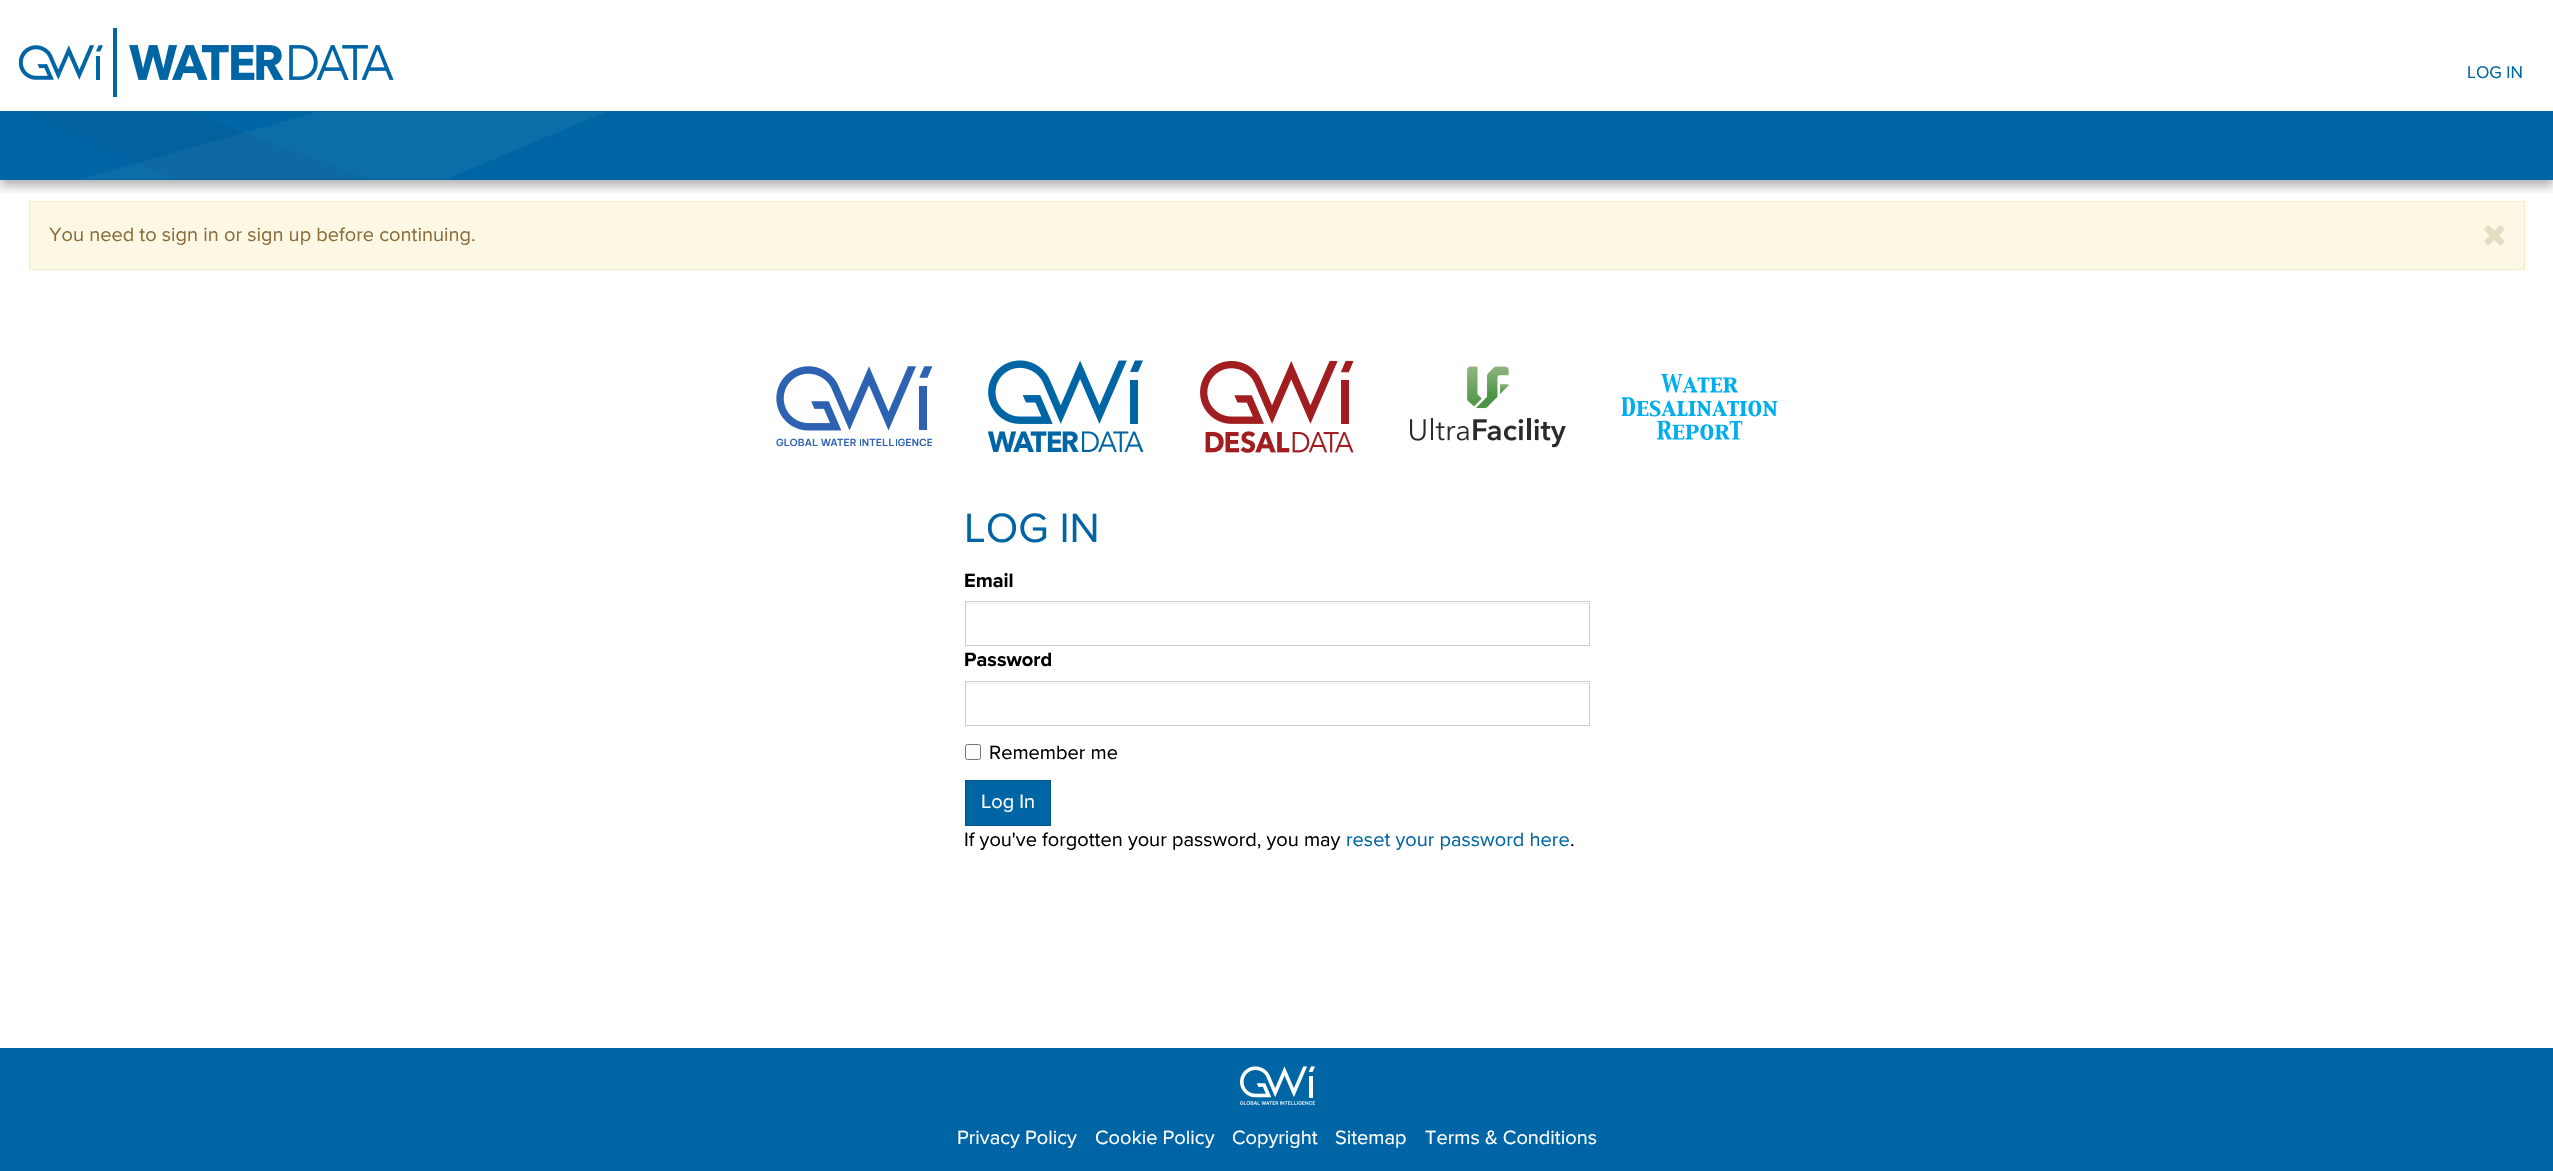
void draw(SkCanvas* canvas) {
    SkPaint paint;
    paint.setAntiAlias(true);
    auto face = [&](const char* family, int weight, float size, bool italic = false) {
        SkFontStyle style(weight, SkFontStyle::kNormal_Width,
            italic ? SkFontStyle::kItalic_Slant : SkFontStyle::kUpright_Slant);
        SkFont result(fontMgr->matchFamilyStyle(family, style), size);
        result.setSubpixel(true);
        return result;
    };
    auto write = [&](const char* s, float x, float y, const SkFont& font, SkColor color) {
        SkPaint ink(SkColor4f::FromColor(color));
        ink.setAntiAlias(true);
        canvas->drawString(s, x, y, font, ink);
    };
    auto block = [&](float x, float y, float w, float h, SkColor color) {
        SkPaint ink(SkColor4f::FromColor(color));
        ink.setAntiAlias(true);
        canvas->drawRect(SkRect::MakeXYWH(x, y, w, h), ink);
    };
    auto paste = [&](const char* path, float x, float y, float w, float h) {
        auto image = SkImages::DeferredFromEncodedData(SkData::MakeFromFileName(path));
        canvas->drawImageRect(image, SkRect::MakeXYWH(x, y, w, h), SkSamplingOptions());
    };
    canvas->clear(SK_ColorWHITE);
    paint.setColor(SkColorSetRGB(252, 248, 227));
    canvas->drawRect(SkRect::MakeXYWH(29.5f, 201.5f, 2495, 68), paint);
    paint.setStyle(SkPaint::kStroke_Style);
    paint.setStrokeWidth(1);
    paint.setColor(SkColorSetRGB(250, 235, 204));
    canvas->drawRect(SkRect::MakeXYWH(29.5f, 201.5f, 2495, 68), paint);
    canvas->save();
    canvas->clipRect(SkRect::MakeXYWH(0, 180, 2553, 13));
    paint.setStyle(SkPaint::kFill_Style);
    paint.setColor(SkColorSetARGB(77, 0, 0, 0));
    paint.setMaskFilter(SkMaskFilter::MakeBlur(kNormal_SkBlurStyle, 5));
    canvas->drawRect(SkRect::MakeXYWH(0, 6, 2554, 180), paint);
    paint.setMaskFilter(nullptr);
    canvas->restore();
    paste("pic1.png", 19, 28, 375, 69);
    auto kFont1 = face("Proxima Nova", 400, 17.5f);
    write("LOG IN", 2467, 78, kFont1, SkColorSetRGB(0, 101, 164));
    block(0, 111, 2553, 69, SkColorSetRGB(0, 101, 164));
    paste("pic2.png", 35, 112, 570, 67);
    auto kFont2 = face("Proxima Nova", 400, 20);
    write("You need to sign in or sign up before continuing.", 49, 241, kFont2, SkColorSetRGB(138, 109, 59));
    paste("pic3.png", 2484, 225, 21, 21);
    paste("pic4.png", 776, 366, 156, 80);
    paste("pic5.png", 988, 360, 156, 92);
    paste("pic6.png", 1200, 360, 154, 93);
    paste("pic7.png", 1410, 366, 156, 82);
    paste("pic8.png", 1621, 374, 157, 66);
    auto kFont3 = face("Proxima Nova", 400, 42.5f);
    write("LOG IN", 964, 542, kFont3, SkColorSetRGB(0, 101, 164));
    auto kFont4 = face("Proxima Nova", 700, 20);
    write("Email", 964, 587, kFont4, SK_ColorBLACK);
    block(966, 603, 623, 1, SkColorSetRGB(236, 236, 236));
    paint.setStyle(SkPaint::kStroke_Style);
    paint.setColor(SkColorSetRGB(204, 204, 204));
    canvas->drawRect(SkRect::MakeXYWH(965.5f, 601.5f, 624, 44), paint);
    write("Password", 964, 666, kFont4, SK_ColorBLACK);
    block(966, 683, 623, 1, SkColorSetRGB(236, 236, 236));
    canvas->drawRect(SkRect::MakeXYWH(965.5f, 681.5f, 624, 44), paint);
    paint.setColor(SkColorSetRGB(118, 118, 118));
    canvas->drawRoundRect(SkRect::MakeXYWH(965.5f, 744.5f, 15, 15), 2, 2, paint);
    write("Remember me", 989, 759, kFont2, SK_ColorBLACK);
    paint.setStyle(SkPaint::kFill_Style);
    paint.setColor(SkColorSetRGB(0, 101, 164));
    canvas->drawRect(SkRect::MakeXYWH(965.5f, 780.5f, 85, 45), paint);
    paint.setStyle(SkPaint::kStroke_Style);
    paint.setColor(SkColorSetRGB(0, 85, 139));
    canvas->drawRect(SkRect::MakeXYWH(965.5f, 780.5f, 85, 45), paint);
    write("Log In", 981, 808, kFont2, SK_ColorWHITE);
    write("If you've forgotten your password, you may", 964, 846, kFont2, SK_ColorBLACK);
    write("reset your password here", 1346, 846, kFont2, SkColorSetRGB(0, 101, 164));
    write(".", 1570, 846, kFont2, SK_ColorBLACK);
    block(0, 1048, 2553, 123, SkColorSetRGB(0, 101, 164));
    paste("pic9.png", 1240, 1066, 75, 39);
    write("Privacy Policy", 957, 1144, kFont2, SK_ColorWHITE);
    write("Cookie Policy", 1095, 1144, kFont2, SK_ColorWHITE);
    write("Copyright", 1232, 1144, kFont2, SK_ColorWHITE);
    write("Sitemap", 1335, 1144, kFont2, SK_ColorWHITE);
    write("Terms & Conditions", 1425, 1144, kFont2, SK_ColorWHITE);
}
